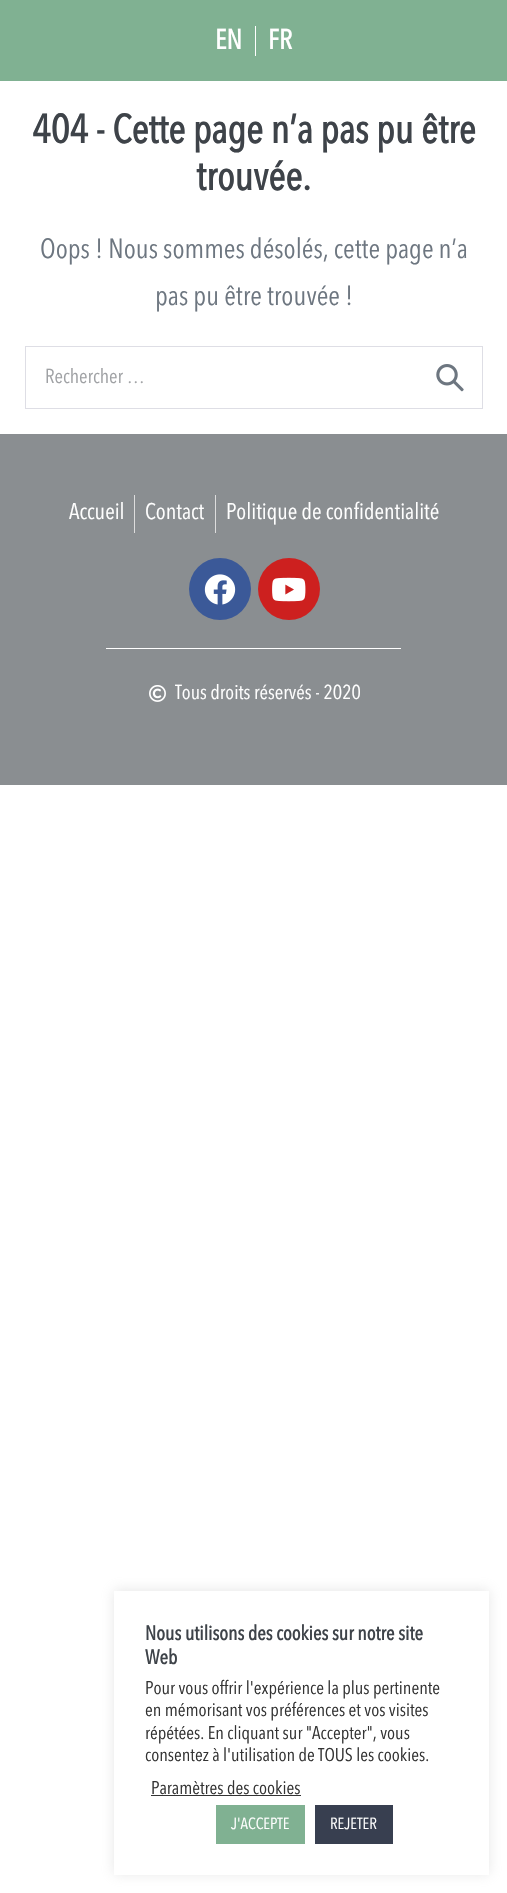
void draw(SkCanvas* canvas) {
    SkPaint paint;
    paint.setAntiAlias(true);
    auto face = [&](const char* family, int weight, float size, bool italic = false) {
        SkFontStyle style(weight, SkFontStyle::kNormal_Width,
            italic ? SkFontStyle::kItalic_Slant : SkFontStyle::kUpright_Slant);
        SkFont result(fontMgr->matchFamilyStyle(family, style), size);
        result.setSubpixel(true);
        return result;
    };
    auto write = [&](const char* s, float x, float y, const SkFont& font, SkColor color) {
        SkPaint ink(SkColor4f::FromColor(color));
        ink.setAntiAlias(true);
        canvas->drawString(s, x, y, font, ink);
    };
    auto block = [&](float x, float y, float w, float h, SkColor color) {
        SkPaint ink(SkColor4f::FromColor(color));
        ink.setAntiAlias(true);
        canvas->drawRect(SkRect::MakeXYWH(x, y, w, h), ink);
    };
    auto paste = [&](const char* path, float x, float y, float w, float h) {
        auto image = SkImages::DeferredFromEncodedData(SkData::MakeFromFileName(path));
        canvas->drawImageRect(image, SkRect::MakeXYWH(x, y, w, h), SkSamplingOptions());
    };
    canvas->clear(SK_ColorWHITE);
    block(0, 0, 507, 81, SkColorSetRGB(128, 177, 146));
    block(255, 26, 1, 30, SK_ColorWHITE);
    auto kFont1 = face("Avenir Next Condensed", 700, 27.5f);
    write("EN", 215, 49, kFont1, SK_ColorWHITE);
    write("FR", 268, 49, kFont1, SK_ColorWHITE);
    auto kFont2 = face("Avenir Next Condensed", 700, 40);
    write("404 - Cette page n’a pas pu être", 32, 143, kFont2, SkColorSetRGB(62, 67, 73));
    write("trouvée.", 196, 190, kFont2, SkColorSetRGB(62, 67, 73));
    auto kFont3 = face("Avenir Next Condensed", 400, 27.5f);
    write("Oops ! Nous sommes désolés, cette page n’a", 40, 258, kFont3, SkColorSetRGB(109, 118, 128));
    write("pas pu être trouvée !", 155, 305, kFont3, SkColorSetRGB(109, 118, 128));
    paint.setStyle(SkPaint::kStroke_Style);
    paint.setStrokeWidth(1);
    paint.setColor(SkColorSetRGB(222, 222, 229));
    canvas->drawRect(SkRect::MakeXYWH(25.5f, 346.5f, 457, 62), paint);
    auto kFont4 = face("Avenir Next Condensed", 400, 20);
    write("Rechercher …", 45, 383, kFont4, SkColorSetRGB(159, 161, 164));
    paste("pic1.png", 436, 364, 28, 28);
    block(0, 434, 507, 351, SkColorSetRGB(138, 142, 145));
    auto kFont5 = face("Avenir Next Condensed", 400, 22.5f);
    write("Accueil", 69, 519, kFont5, SK_ColorWHITE);
    block(134, 495, 1, 38, SkColorSetRGB(221, 221, 221));
    write("Contact", 145, 519, kFont5, SK_ColorWHITE);
    block(215, 495, 1, 38, SkColorSetRGB(221, 221, 221));
    write("Politique de confidentialité", 226, 519, kFont5, SK_ColorWHITE);
    paint.setStyle(SkPaint::kFill_Style);
    paint.setColor(SkColorSetRGB(59, 89, 152));
    canvas->drawCircle(220, 589, 31, paint);
    paste("pic2.png", 204, 574, 32, 31);
    paint.setColor(SkColorSetRGB(205, 32, 31));
    canvas->drawCircle(289, 589, 31, paint);
    paste("pic3.png", 272, 577, 34, 25);
    block(106, 648, 295, 1, SK_ColorWHITE);
    paste("pic4.png", 149, 685, 17, 17);
    write("Tous droits réservés - 2020", 175, 699, kFont4, SK_ColorWHITE);
    paint.setColor(SkColorSetARGB(77, 172, 171, 171));
    paint.setMaskFilter(SkMaskFilter::MakeBlur(kNormal_SkBlurStyle, 6));
    canvas->drawRect(SkRect::MakeXYWH(114, 1590, 375, 284), paint);
    paint.setMaskFilter(nullptr);
    block(114, 1591, 375, 284, SK_ColorWHITE);
    auto kFont6 = face("Avenir Next Condensed", 700, 20);
    write("Nous utilisons des cookies sur notre site", 145, 1640, kFont6, SkColorSetRGB(62, 67, 73));
    write("Web", 145, 1664, kFont6, SkColorSetRGB(62, 67, 73));
    auto kFont7 = face("Avenir Next Condensed", 400, 18.3f);
    write("Pour vous offrir l'expérience la plus pertinente", 145, 1694, kFont7, SkColorSetRGB(51, 51, 51));
    write("en mémorisant vos préférences et vos visites", 145, 1716, kFont7, SkColorSetRGB(51, 51, 51));
    write("répétées. En cliquant sur \"Accepter\", vous", 145, 1739, kFont7, SkColorSetRGB(51, 51, 51));
    write("consentez à l'utilisation de TOUS les cookies.", 145, 1761, kFont7, SkColorSetRGB(51, 51, 51));
    write("Paramètres des cookies", 151, 1794, kFont7, SkColorSetRGB(51, 51, 51));
    block(151, 1795, 150, 1, SkColorSetRGB(51, 51, 51));
    block(216, 1805, 89, 39, SkColorSetRGB(128, 177, 146));
    auto kFont8 = face("Avenir Next Condensed", 400, 16);
    write("J'ACCEPTE", 231, 1829, kFont8, SK_ColorWHITE);
    block(315, 1805, 78, 39, SkColorSetRGB(56, 63, 80));
    write("REJETER", 330, 1829, kFont8, SK_ColorWHITE);
}
